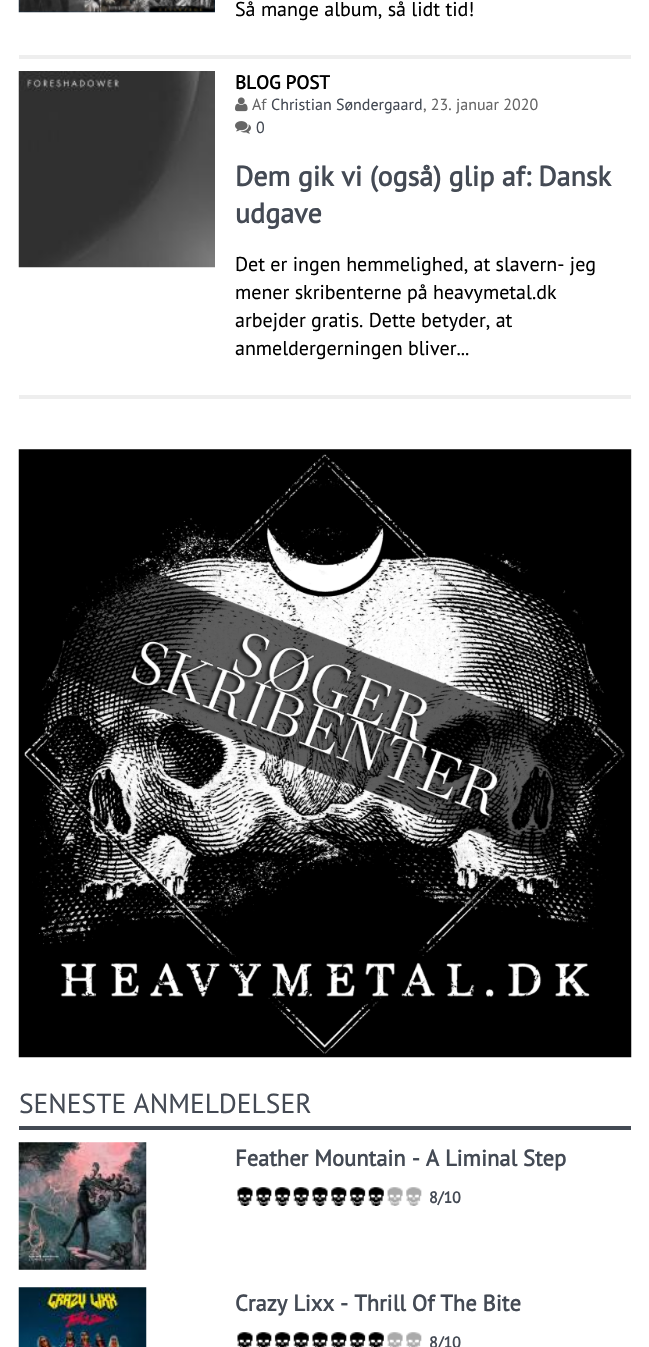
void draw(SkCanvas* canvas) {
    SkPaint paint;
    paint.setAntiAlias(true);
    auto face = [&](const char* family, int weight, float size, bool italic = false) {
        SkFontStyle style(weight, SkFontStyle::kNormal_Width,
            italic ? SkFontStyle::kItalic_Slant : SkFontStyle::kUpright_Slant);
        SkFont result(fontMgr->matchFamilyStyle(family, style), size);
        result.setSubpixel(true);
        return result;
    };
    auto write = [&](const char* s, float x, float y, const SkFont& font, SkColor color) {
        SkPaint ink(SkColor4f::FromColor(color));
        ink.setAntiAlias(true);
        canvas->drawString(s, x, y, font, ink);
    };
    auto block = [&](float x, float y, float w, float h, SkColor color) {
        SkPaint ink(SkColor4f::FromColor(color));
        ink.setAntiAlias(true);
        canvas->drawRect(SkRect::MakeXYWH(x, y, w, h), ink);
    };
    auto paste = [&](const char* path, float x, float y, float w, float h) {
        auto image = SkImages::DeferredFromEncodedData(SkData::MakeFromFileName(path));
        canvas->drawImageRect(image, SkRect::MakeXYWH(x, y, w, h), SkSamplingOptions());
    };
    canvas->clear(SK_ColorWHITE);
    block(19, 55, 612, 4, SkColorSetRGB(238, 238, 238));
    paste("pic1.png", 18, 0, 197, 13);
    auto kFont1 = face("PT Sans", 400, 20);
    write("Så mange album, så lidt tid!", 235, 16, kFont1, SK_ColorBLACK);
    block(19, 395, 612, 4, SkColorSetRGB(238, 238, 238));
    paste("pic2.png", 18, 71, 197, 197);
    auto kFont2 = face("PT Sans", 700, 19);
    write("BLOG POST", 235, 89, kFont2, SK_ColorBLACK);
    paste("pic3.png", 235, 97, 13, 15);
    auto kFont3 = face("PT Sans", 400, 16);
    write("Af", 252, 110, kFont3, SkColorSetRGB(102, 102, 102));
    write("Christian Søndergaard", 271, 110, kFont3, SkColorSetRGB(68, 74, 84));
    write(", 23. januar 2020", 423, 110, kFont3, SkColorSetRGB(102, 102, 102));
    paste("pic4.png", 235, 121, 16, 13);
    write("0", 256, 133, kFont3, SkColorSetRGB(68, 74, 84));
    auto kFont4 = face("PT Sans", 700, 28);
    write("Dem gik vi (også) glip af: Dansk", 235, 186, kFont4, SkColorSetRGB(68, 74, 84));
    write("udgave", 235, 223, kFont4, SkColorSetRGB(68, 74, 84));
    write("Det er ingen hemmelighed, at slavern- jeg", 235, 271, kFont1, SK_ColorBLACK);
    write("mener skribenterne på heavymetal.dk", 235, 299, kFont1, SK_ColorBLACK);
    write("arbejder gratis. Dette betyder, at", 235, 327, kFont1, SK_ColorBLACK);
    write("anmeldergerningen bliver...", 235, 355, kFont1, SK_ColorBLACK);
    paste("pic5.png", 18, 449, 614, 609);
    block(19, 1126, 612, 4, SkColorSetRGB(68, 74, 84));
    auto kFont5 = face("PT Sans", 400, 27.5f);
    write("SENESTE ANMELDELSER", 19, 1113, kFont5, SkColorSetRGB(68, 74, 84));
    paste("pic6.png", 18, 1142, 129, 128);
    auto kFont6 = face("PT Sans", 700, 22.5f);
    write("Feather Mountain - A Liminal Step", 235, 1166, kFont6, SkColorSetRGB(68, 74, 84));
    paste("pic7.png", 237, 1187, 185, 19);
    auto kFont7 = face("PT Sans", 700, 16);
    write("8/10", 429, 1203, kFont7, SkColorSetRGB(68, 74, 84));
    paste("pic8.png", 18, 1287, 129, 60);
    write("Crazy Lixx - Thrill Of The Bite", 235, 1311, kFont6, SkColorSetRGB(68, 74, 84));
    paste("pic9.png", 237, 1332, 185, 15);
    write("8/10", 429, 1348, kFont7, SkColorSetRGB(68, 74, 84));
}
